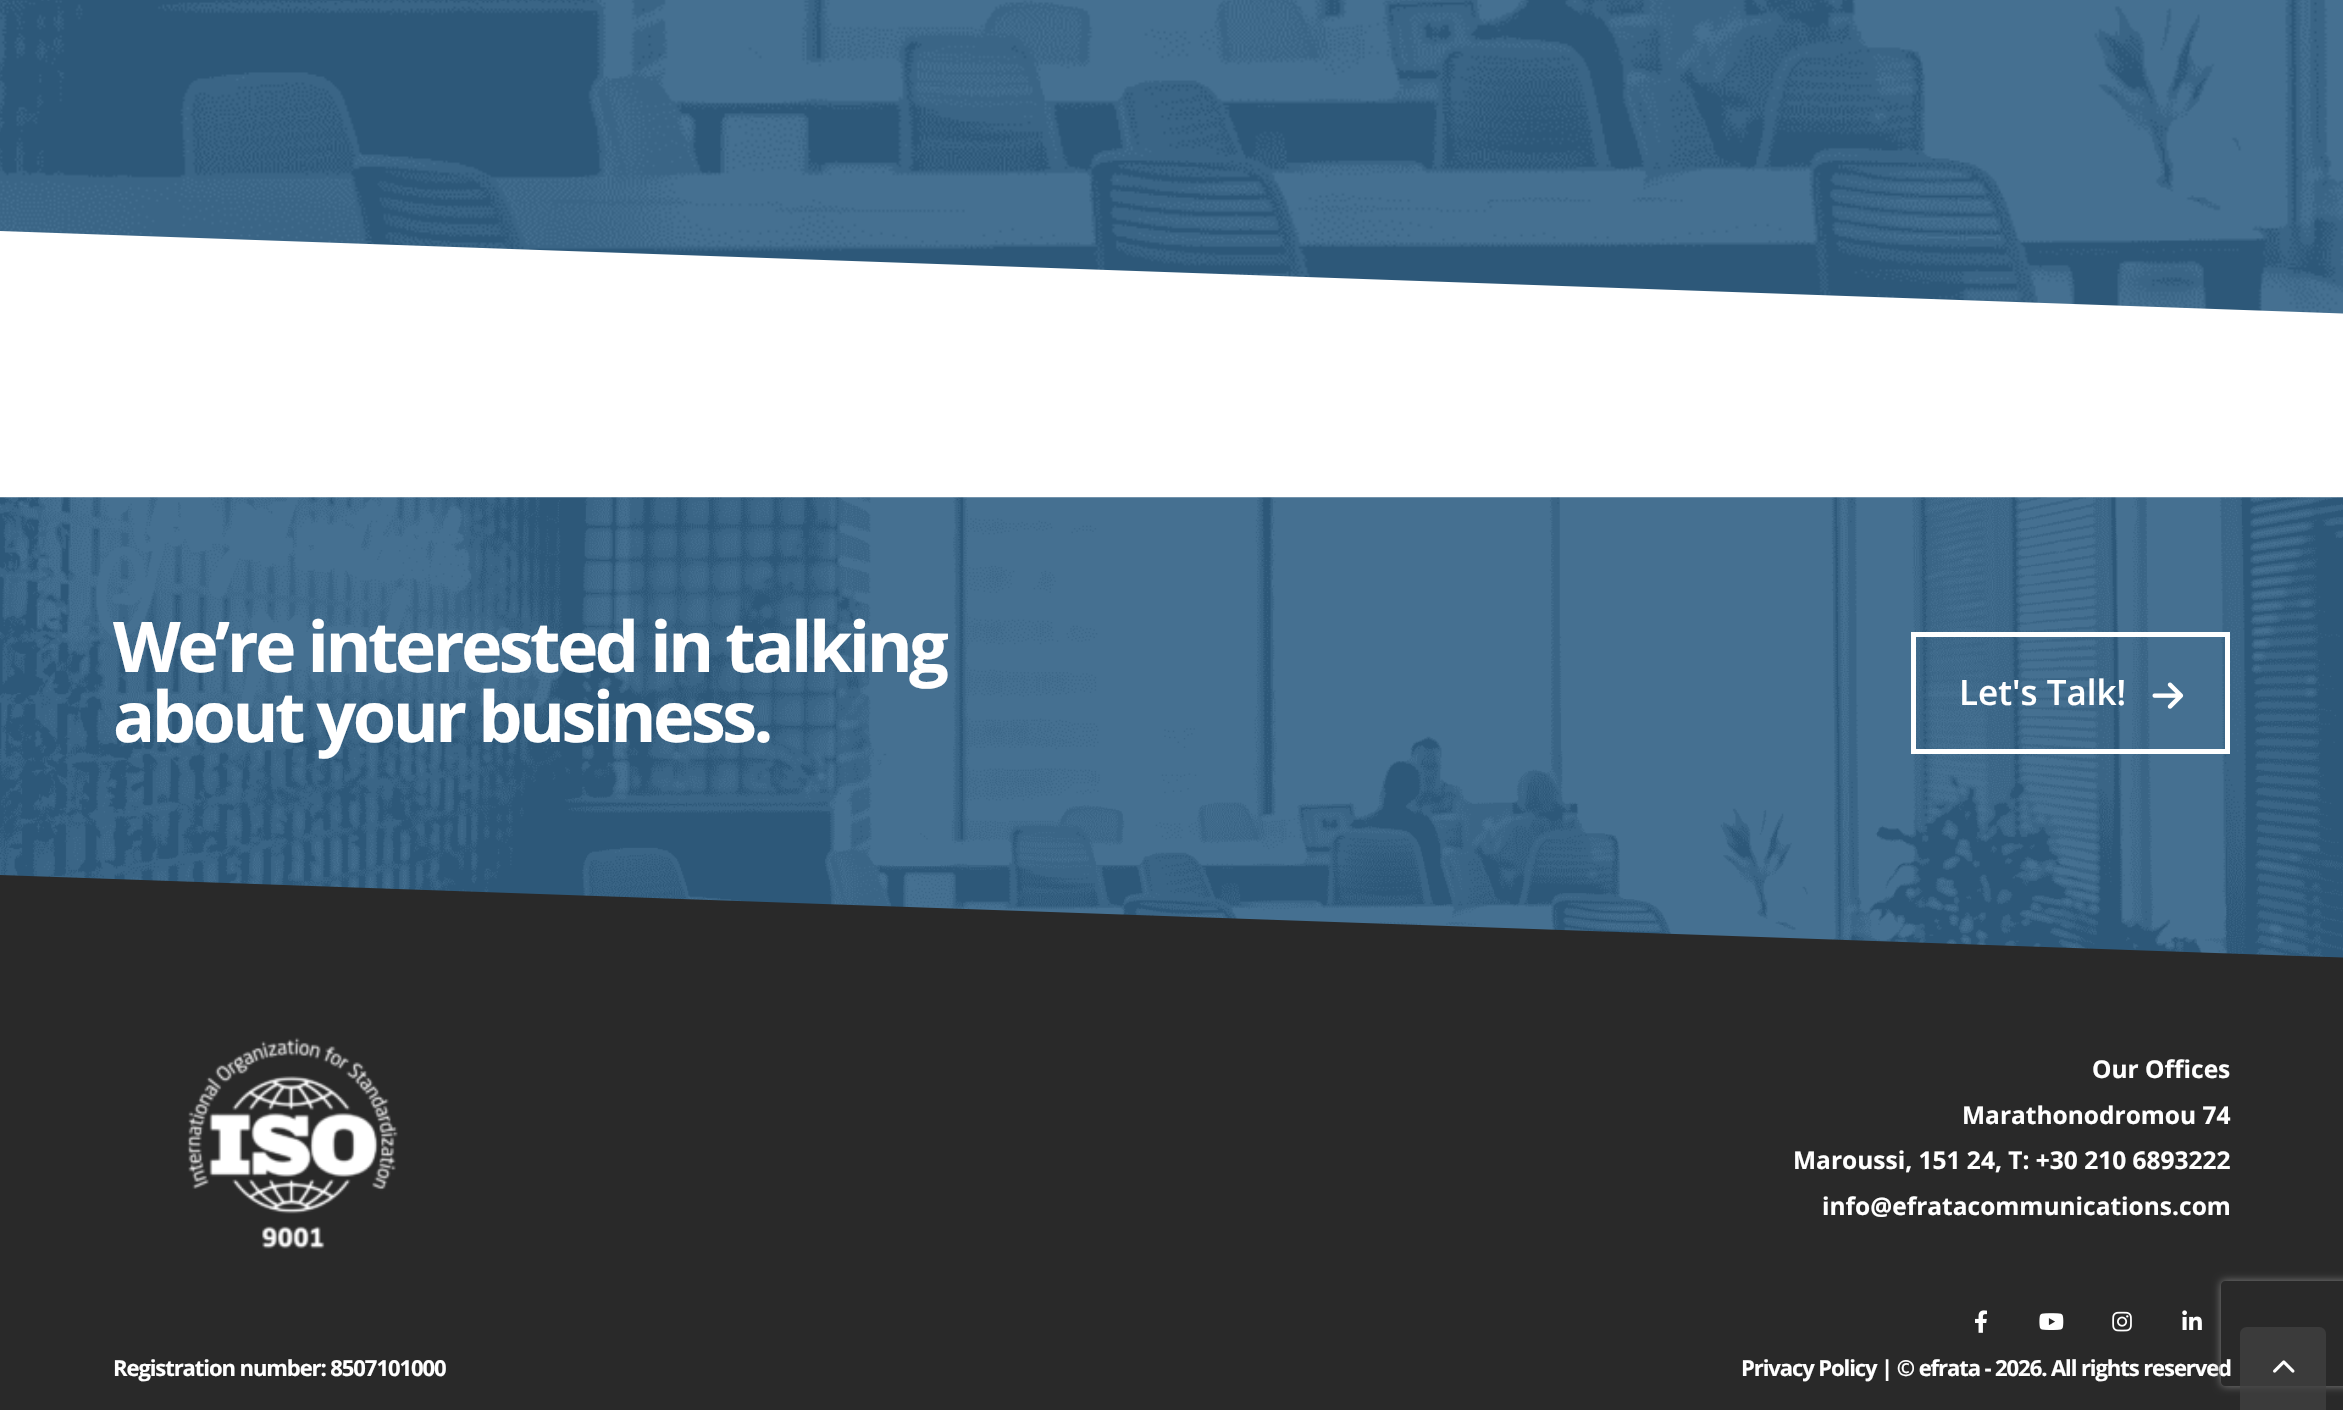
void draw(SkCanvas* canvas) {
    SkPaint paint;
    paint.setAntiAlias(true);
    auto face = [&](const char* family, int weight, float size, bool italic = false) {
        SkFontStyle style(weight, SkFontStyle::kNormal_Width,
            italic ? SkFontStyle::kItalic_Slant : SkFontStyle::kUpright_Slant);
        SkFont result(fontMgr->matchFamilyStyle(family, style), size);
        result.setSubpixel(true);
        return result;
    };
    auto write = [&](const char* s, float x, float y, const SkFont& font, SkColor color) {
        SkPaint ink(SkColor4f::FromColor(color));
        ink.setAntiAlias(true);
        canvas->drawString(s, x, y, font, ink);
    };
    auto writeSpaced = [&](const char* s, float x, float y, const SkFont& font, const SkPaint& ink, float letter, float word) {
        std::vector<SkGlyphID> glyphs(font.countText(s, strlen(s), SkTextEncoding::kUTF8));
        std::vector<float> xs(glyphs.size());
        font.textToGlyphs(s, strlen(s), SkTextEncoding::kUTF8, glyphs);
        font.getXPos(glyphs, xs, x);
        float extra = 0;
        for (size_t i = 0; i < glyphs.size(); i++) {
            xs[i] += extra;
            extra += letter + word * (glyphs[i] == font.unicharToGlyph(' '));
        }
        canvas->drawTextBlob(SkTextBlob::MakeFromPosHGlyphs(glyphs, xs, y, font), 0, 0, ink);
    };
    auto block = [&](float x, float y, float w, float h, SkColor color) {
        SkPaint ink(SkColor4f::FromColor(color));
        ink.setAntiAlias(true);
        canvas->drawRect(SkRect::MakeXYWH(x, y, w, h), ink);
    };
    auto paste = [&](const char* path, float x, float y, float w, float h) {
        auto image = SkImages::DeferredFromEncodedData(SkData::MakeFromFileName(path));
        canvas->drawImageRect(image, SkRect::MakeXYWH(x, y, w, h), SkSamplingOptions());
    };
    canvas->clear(SK_ColorWHITE);
    paste("pic1.png", 0, 0, 2343, 314);
    canvas->save();
    canvas->clipRect(SkRect::MakeXYWH(0, 0, 2343, 368));
    paint.setColor(SK_ColorWHITE);
    canvas->drawPath(SkPathBuilder().moveTo(-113, 227).lineTo(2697, 326).lineTo(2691, 501).lineTo(-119, 402).close().detach(), paint);
    canvas->restore();
    paste("pic2.png", 0, 497, 2343, 461);
    auto kFont1 = face("Open Sans", 700, 70);
    writeSpaced("We’re interested in talking", 113, 672, kFont1, paint, -3.5f, 0);
    writeSpaced("about your business.", 113, 742, kFont1, paint, -3.5f, 0);
    paint.setStyle(SkPaint::kStroke_Style);
    paint.setStrokeWidth(5);
    canvas->drawRect(SkRect::MakeXYWH(1913.5f, 634.5f, 314, 117), paint);
    auto kFont2 = face("Open Sans", 600, 35);
    write("Let's Talk!", 1959, 705, kFont2, SK_ColorWHITE);
    paste("pic3.png", 2152, 682, 32, 27);
    canvas->save();
    canvas->clipRect(SkRect::MakeXYWH(0, 497, 2343, 515));
    paint.setStyle(SkPaint::kFill_Style);
    paint.setColor(SkColorSetRGB(41, 41, 41));
    canvas->drawPath(SkPathBuilder().moveTo(-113, 871).lineTo(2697, 970).lineTo(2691, 1145).lineTo(-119, 1046).close().detach(), paint);
    canvas->restore();
    block(0, 1012, 2343, 398, SkColorSetRGB(41, 41, 41));
    paste("pic4.png", 187, 1037, 211, 212);
    auto kFont3 = face("Open Sans", 700, 24.5f);
    write("Our Offices", 2092, 1078, kFont3, SK_ColorWHITE);
    write("Marathonodromou 74", 1962, 1124, kFont3, SK_ColorWHITE);
    write("Maroussi, 151 24, T: +30 210 6893222", 1793, 1169, kFont3, SK_ColorWHITE);
    write("info@efratacommunications.com", 1822, 1215, kFont3, SK_ColorWHITE);
    paste("pic5.png", 1975, 1310, 12, 23);
    paste("pic6.png", 2039, 1313, 25, 17);
    paste("pic7.png", 2112, 1311, 20, 21);
    paste("pic8.png", 2182, 1310, 20, 20);
    auto kFont4 = face("Open Sans", 700, 22.05f);
    paint.setColor(SK_ColorWHITE);
    writeSpaced("Registration number: 8507101000", 113, 1376, kFont4, paint, -1.1f, 0);
    writeSpaced("Privacy Policy | © efrata - 2026. All rights reserved", 1741, 1376, kFont4, paint, -1.1f, 0);
    canvas->save();
    canvas->clipPath(SkPathBuilder(SkPathFillType::kEvenOdd).moveTo(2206, 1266).lineTo(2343, 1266).lineTo(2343, 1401).lineTo(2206, 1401).close().moveTo(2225, 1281).lineTo(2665, 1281).cubicTo(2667, 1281, 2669, 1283, 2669, 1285).lineTo(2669, 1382).cubicTo(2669, 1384, 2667, 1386, 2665, 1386).lineTo(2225, 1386).cubicTo(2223, 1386, 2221, 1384, 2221, 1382).lineTo(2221, 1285).cubicTo(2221, 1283, 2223, 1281, 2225, 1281).close().detach(), true);
    paint.setColor(SkColorSetRGB(128, 128, 128));
    paint.setMaskFilter(SkMaskFilter::MakeBlur(kNormal_SkBlurStyle, 4.5f));
    canvas->drawRoundRect(SkRect::MakeXYWH(2221, 1281, 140, 105), 4, 4, paint);
    paint.setMaskFilter(nullptr);
    canvas->restore();
    paint.setColor(SkColorSetARGB(191, 64, 64, 64));
    canvas->drawPath(SkPathBuilder().moveTo(2247, 1327).lineTo(2319, 1327).cubicTo(2323, 1327, 2326, 1330, 2326, 1334).lineTo(2326, 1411).lineTo(2240, 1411).lineTo(2240, 1334).cubicTo(2240, 1330, 2243, 1327, 2247, 1327).close().detach(), paint);
    paste("pic9.png", 2273, 1360, 22, 13);
}
